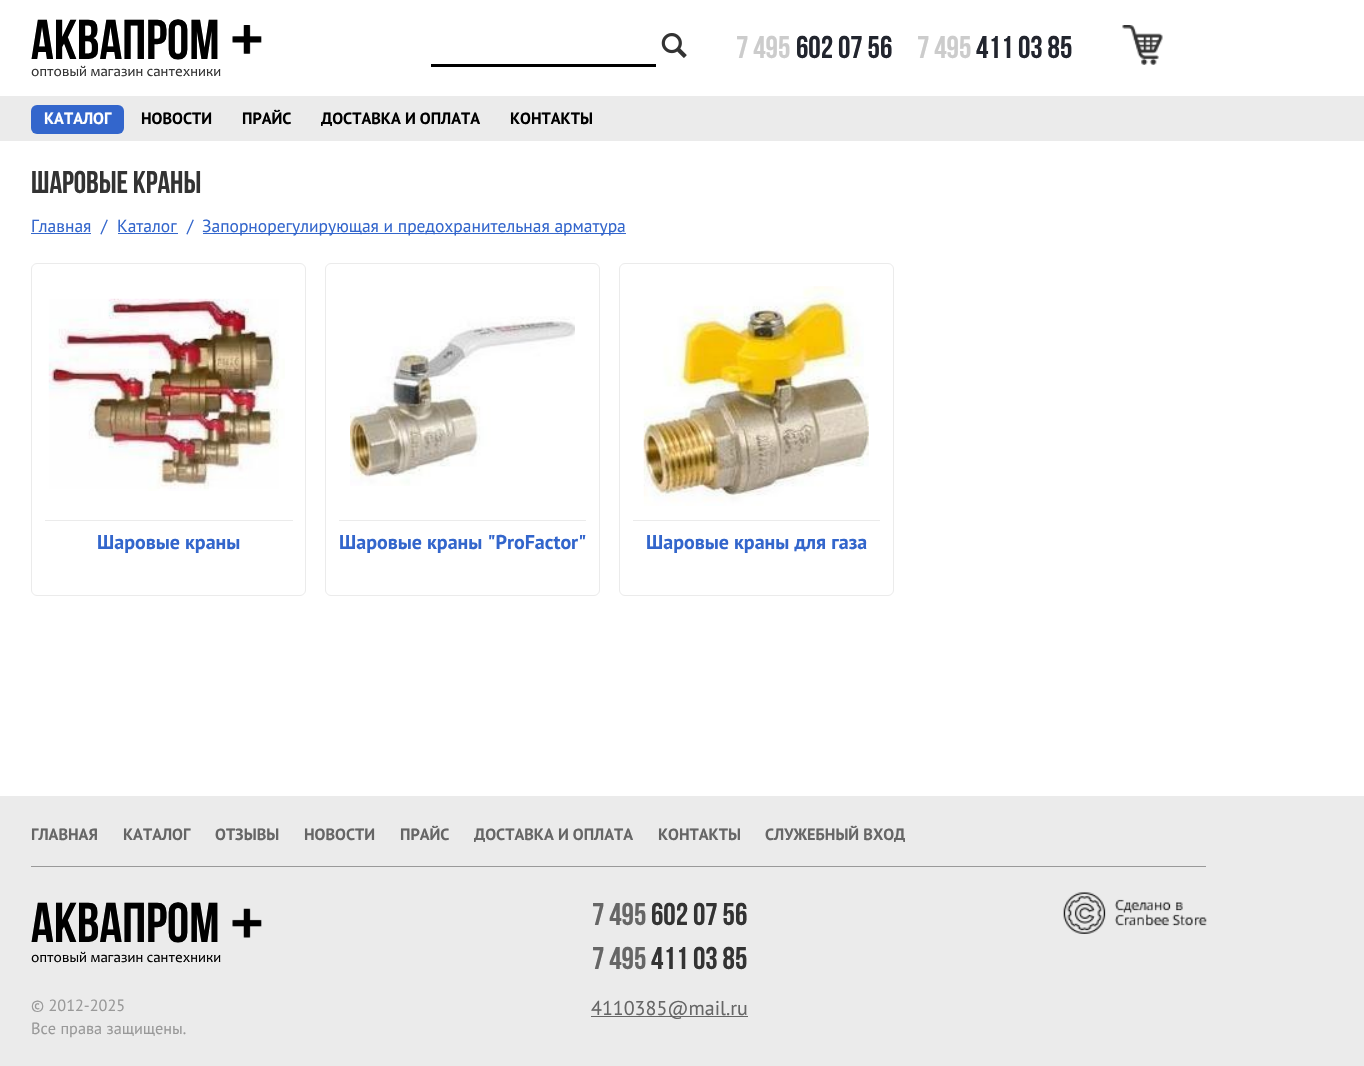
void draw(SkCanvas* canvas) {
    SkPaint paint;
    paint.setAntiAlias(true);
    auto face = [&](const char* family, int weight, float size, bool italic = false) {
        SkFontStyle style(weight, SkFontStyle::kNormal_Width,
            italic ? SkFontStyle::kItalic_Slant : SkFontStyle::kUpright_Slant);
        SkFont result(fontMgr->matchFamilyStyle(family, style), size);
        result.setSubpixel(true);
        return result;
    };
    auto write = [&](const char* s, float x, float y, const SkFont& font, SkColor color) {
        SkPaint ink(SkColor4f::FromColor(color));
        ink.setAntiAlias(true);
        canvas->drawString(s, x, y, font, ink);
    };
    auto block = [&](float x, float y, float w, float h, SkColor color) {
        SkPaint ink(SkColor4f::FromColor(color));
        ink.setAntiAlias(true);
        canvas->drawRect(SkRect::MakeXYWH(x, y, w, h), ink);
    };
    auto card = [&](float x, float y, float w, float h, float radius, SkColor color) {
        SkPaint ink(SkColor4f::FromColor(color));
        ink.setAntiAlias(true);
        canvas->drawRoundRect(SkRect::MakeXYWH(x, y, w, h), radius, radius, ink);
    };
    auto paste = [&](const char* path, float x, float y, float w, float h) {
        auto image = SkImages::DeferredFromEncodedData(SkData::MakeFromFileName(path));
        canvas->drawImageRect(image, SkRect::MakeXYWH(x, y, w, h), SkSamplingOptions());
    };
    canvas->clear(SK_ColorWHITE);
    auto kFont1 = face("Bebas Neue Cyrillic", 400, 56);
    write("АКВАПРОМ", 31, 59, kFont1, SK_ColorBLACK);
    paste("pic1.png", 232, 25, 30, 29);
    auto kFont2 = face("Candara", 400, 15);
    write("оптовый магазин сантехники", 31, 76, kFont2, SkColorSetRGB(51, 51, 51));
    paste("pic2.png", 661, 33, 26, 25);
    block(431, 64, 225, 3, SK_ColorBLACK);
    auto kFont3 = face("Bebas Neue Cyrillic", 400, 31.25f);
    write("7 495", 736, 58, kFont3, SkColorSetRGB(204, 204, 204));
    write("602 07 56", 796, 58, kFont3, SkColorSetRGB(34, 37, 46));
    write("7 495", 917, 58, kFont3, SkColorSetRGB(204, 204, 204));
    write("411 03 85", 976, 58, kFont3, SkColorSetRGB(34, 37, 46));
    paste("pic3.png", 1122, 25, 41, 40);
    block(0, 96, 1364, 45, SkColorSetRGB(235, 235, 235));
    card(31, 105, 93, 29, 6, SkColorSetRGB(51, 102, 204));
    auto kFont4 = face("PT Sans", 700, 16.25f);
    write("КАТАЛОГ", 44, 124, kFont4, SK_ColorWHITE);
    write("НОВОСТИ", 141, 124, kFont4, SK_ColorBLACK);
    write("ПРАЙС", 242, 124, kFont4, SK_ColorBLACK);
    write("ДОСТАВКА И ОПЛАТА", 321, 124, kFont4, SK_ColorBLACK);
    write("КОНТАКТЫ", 510, 124, kFont4, SK_ColorBLACK);
    write("Шаровые краны", 31, 193, kFont3, SkColorSetRGB(51, 51, 51));
    auto kFont5 = face("PT Sans", 400, 17.5f);
    write("Главная", 31, 232, kFont5, SkColorSetRGB(51, 102, 204));
    block(31, 233, 60, 1, SkColorSetRGB(51, 102, 204));
    write("/", 101, 232, kFont5, SkColorSetRGB(51, 102, 204));
    write("Каталог", 117, 232, kFont5, SkColorSetRGB(51, 102, 204));
    block(118, 233, 60, 1, SkColorSetRGB(51, 102, 204));
    write("/", 187, 232, kFont5, SkColorSetRGB(51, 102, 204));
    block(203, 233, 423, 1, SkColorSetRGB(51, 102, 204));
    write("Запорнорегулирующая и предохранительная арматура", 202, 232, kFont5, SkColorSetRGB(51, 102, 204));
    paint.setStyle(SkPaint::kStroke_Style);
    paint.setStrokeWidth(1);
    paint.setColor(SkColorSetRGB(235, 235, 235));
    canvas->drawRoundRect(SkRect::MakeXYWH(31.5f, 263.5f, 274, 332), 5.5f, 5.5f, paint);
    paste("pic4.png", 48, 298, 237, 193);
    block(45, 520, 248, 1, SkColorSetRGB(235, 235, 235));
    auto kFont6 = face("PT Sans", 700, 20);
    write("Шаровые краны", 97, 549, kFont6, SkColorSetRGB(51, 102, 204));
    canvas->drawRoundRect(SkRect::MakeXYWH(325.5f, 263.5f, 274, 332), 5.5f, 5.5f, paint);
    paste("pic5.png", 350, 316, 225, 170);
    block(339, 520, 247, 1, SkColorSetRGB(235, 235, 235));
    write("Шаровые краны \"ProFactor\"", 339, 549, kFont6, SkColorSetRGB(51, 102, 204));
    canvas->drawRoundRect(SkRect::MakeXYWH(619.5f, 263.5f, 274, 332), 5.5f, 5.5f, paint);
    paste("pic6.png", 643, 286, 226, 220);
    block(633, 520, 247, 1, SkColorSetRGB(235, 235, 235));
    write("Шаровые краны для газа", 646, 549, kFont6, SkColorSetRGB(51, 102, 204));
    block(0, 796, 1364, 270, SkColorSetRGB(235, 235, 235));
    write("ГЛАВНАЯ", 31, 840, kFont4, SkColorSetRGB(102, 102, 102));
    write("КАТАЛОГ", 123, 840, kFont4, SkColorSetRGB(102, 102, 102));
    write("ОТЗЫВЫ", 215, 840, kFont4, SkColorSetRGB(102, 102, 102));
    write("НОВОСТИ", 304, 840, kFont4, SkColorSetRGB(102, 102, 102));
    write("ПРАЙС", 400, 840, kFont4, SkColorSetRGB(102, 102, 102));
    write("ДОСТАВКА И ОПЛАТА", 474, 840, kFont4, SkColorSetRGB(102, 102, 102));
    write("КОНТАКТЫ", 658, 840, kFont4, SkColorSetRGB(102, 102, 102));
    write("СЛУЖЕБНЫЙ ВХОД", 765, 840, kFont4, SkColorSetRGB(102, 102, 102));
    block(31, 866, 1175, 1, SkColorSetRGB(153, 153, 153));
    write("АКВАПРОМ", 31, 942, kFont1, SK_ColorBLACK);
    paste("pic7.png", 232, 908, 30, 30);
    write("оптовый магазин сантехники", 31, 962, kFont2, SK_ColorBLACK);
    auto kFont7 = face("PT Sans", 400, 16.25f);
    write("© 2012-2025", 31, 1011, kFont7, SkColorSetRGB(153, 153, 153));
    write("Все права защищены.", 31, 1034, kFont7, SkColorSetRGB(153, 153, 153));
    write("7 495", 592, 925, kFont3, SkColorSetRGB(102, 102, 102));
    write("602 07 56", 651, 925, kFont3, SkColorSetRGB(51, 51, 51));
    write("7 495", 592, 969, kFont3, SkColorSetRGB(102, 102, 102));
    write("411 03 85", 651, 969, kFont3, SkColorSetRGB(51, 51, 51));
    block(591, 1016, 157, 1, SkColorSetRGB(102, 102, 102));
    auto kFont8 = face("PT Sans", 400, 20);
    write("4110385@mail.ru", 591, 1015, kFont8, SkColorSetRGB(102, 102, 102));
    paste("pic8.png", 1063, 892, 144, 42);
}
